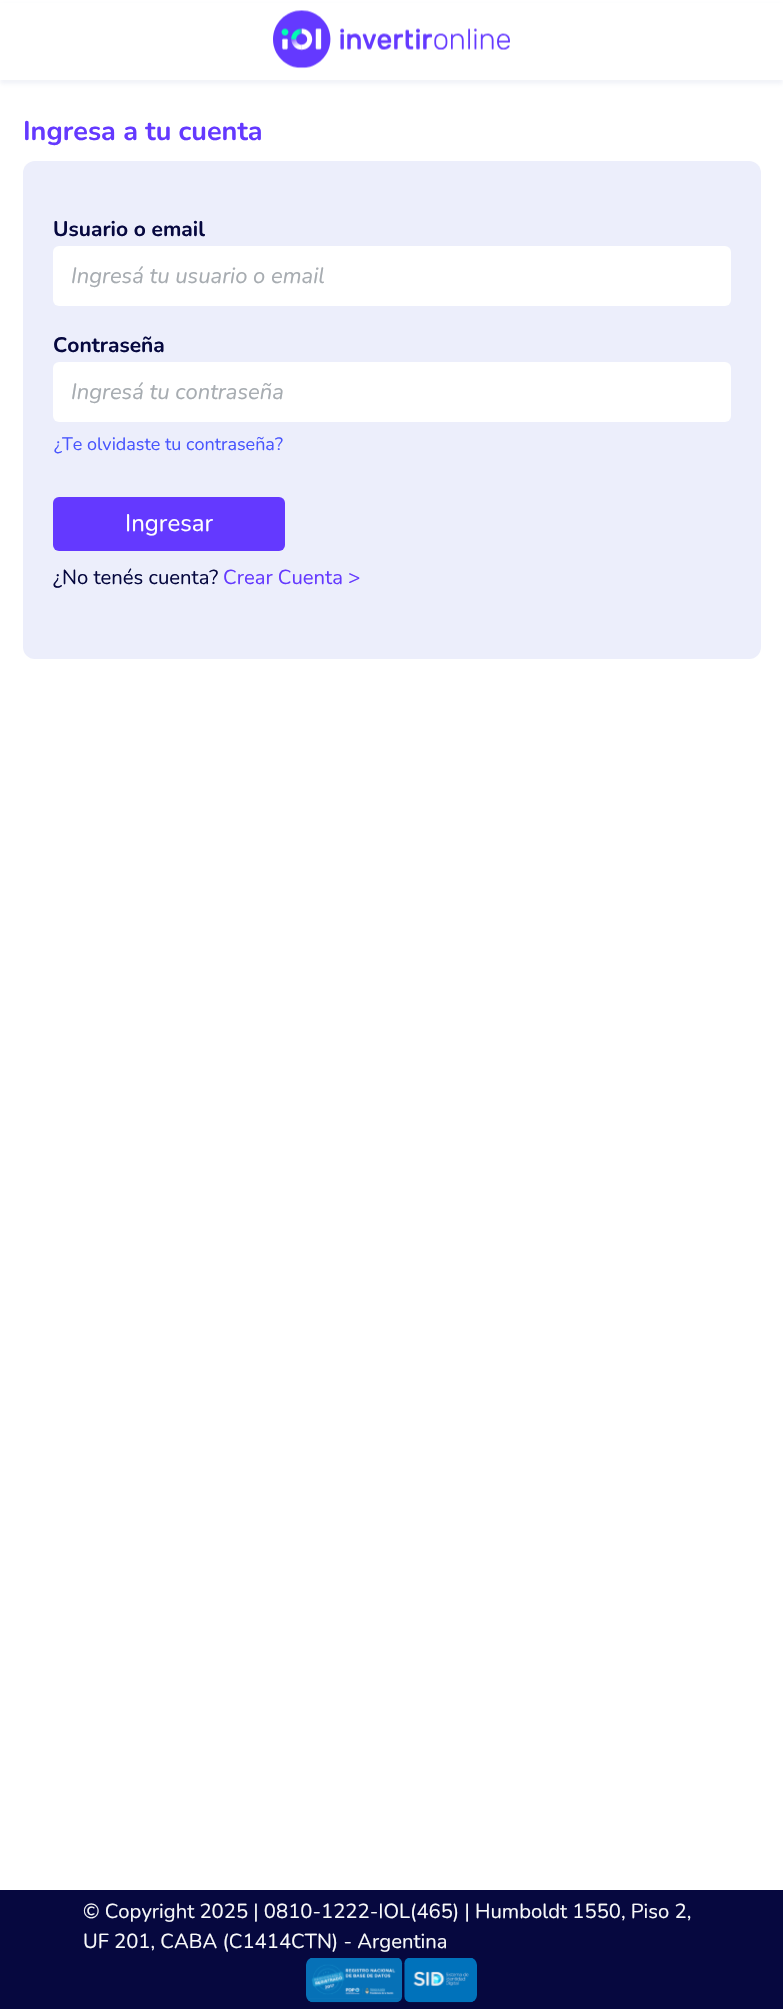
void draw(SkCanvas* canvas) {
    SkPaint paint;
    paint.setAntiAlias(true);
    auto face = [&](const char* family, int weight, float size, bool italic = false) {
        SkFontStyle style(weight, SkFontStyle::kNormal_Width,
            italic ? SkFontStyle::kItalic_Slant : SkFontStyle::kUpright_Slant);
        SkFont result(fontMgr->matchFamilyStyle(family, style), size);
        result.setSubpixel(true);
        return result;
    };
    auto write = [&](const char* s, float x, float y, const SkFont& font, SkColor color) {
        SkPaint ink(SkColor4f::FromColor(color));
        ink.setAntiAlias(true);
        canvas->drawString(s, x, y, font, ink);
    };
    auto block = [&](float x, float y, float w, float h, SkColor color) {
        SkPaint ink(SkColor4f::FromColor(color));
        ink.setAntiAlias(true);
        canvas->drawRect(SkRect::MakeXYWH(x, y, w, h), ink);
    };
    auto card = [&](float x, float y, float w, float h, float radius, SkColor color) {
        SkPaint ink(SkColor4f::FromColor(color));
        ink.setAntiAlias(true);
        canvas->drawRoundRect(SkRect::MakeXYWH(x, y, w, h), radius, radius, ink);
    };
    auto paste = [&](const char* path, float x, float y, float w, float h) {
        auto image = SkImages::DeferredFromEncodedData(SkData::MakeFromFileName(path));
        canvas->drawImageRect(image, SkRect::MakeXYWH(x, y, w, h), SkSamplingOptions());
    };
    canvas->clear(SK_ColorWHITE);
    paint.setColor(SkColorSetARGB(128, 228, 232, 241));
    paint.setMaskFilter(SkMaskFilter::MakeBlur(kNormal_SkBlurStyle, 2));
    canvas->drawRect(SkRect::MakeXYWH(0, 5, 783, 79), paint);
    paint.setMaskFilter(nullptr);
    block(0, 3, 783, 77, SK_ColorWHITE);
    paste("pic1.png", 273, 10, 237, 59);
    auto kFont1 = face("Nunito", 700, 27);
    write("Ingresa a tu cuenta", 23, 140, kFont1, SkColorSetRGB(100, 57, 255));
    card(23, 161, 738, 498, 12, SkColorSetRGB(236, 238, 251));
    auto kFont2 = face("Nunito", 700, 21);
    write("Usuario o email", 53, 236, kFont2, SkColorSetRGB(6, 8, 63));
    card(53, 246, 678, 60, 6, SK_ColorWHITE);
    auto kFont3 = face("Nunito", 400, 22, true);
    write("Ingresá tu usuario o email", 71, 283, kFont3, SkColorSetRGB(167, 172, 177));
    write("Contraseña", 53, 352, kFont2, SkColorSetRGB(6, 8, 63));
    card(53, 362, 678, 60, 6, SK_ColorWHITE);
    write("Ingresá tu contraseña", 71, 399, kFont3, SkColorSetRGB(167, 172, 177));
    auto kFont4 = face("Nunito", 400, 18);
    write("¿Te olvidaste tu contraseña?", 54, 450, kFont4, SkColorSetRGB(73, 86, 254));
    card(53, 497, 232, 54, 6, SkColorSetRGB(100, 57, 255));
    auto kFont5 = face("Nunito", 400, 24);
    write("Ingresar", 125, 531, kFont5, SK_ColorWHITE);
    auto kFont6 = face("Nunito", 400, 20.25f);
    write("¿No tenés cuenta?", 53, 584, kFont6, SkColorSetRGB(6, 8, 63));
    write("Crear Cuenta >", 223, 584, kFont6, SkColorSetRGB(100, 57, 255));
    block(0, 1890, 783, 119, SkColorSetRGB(6, 8, 63));
    write("© Copyright 2025 | 0810-1222-IOL(465) | Humboldt 1550, Piso 2,", 83, 1918, kFont6, SkColorSetRGB(248, 249, 250));
    write("UF 201, CABA (C1414CTN) - Argentina", 83, 1948, kFont6, SkColorSetRGB(248, 249, 250));
    paste("pic2.png", 306, 1958, 171, 45);
}
